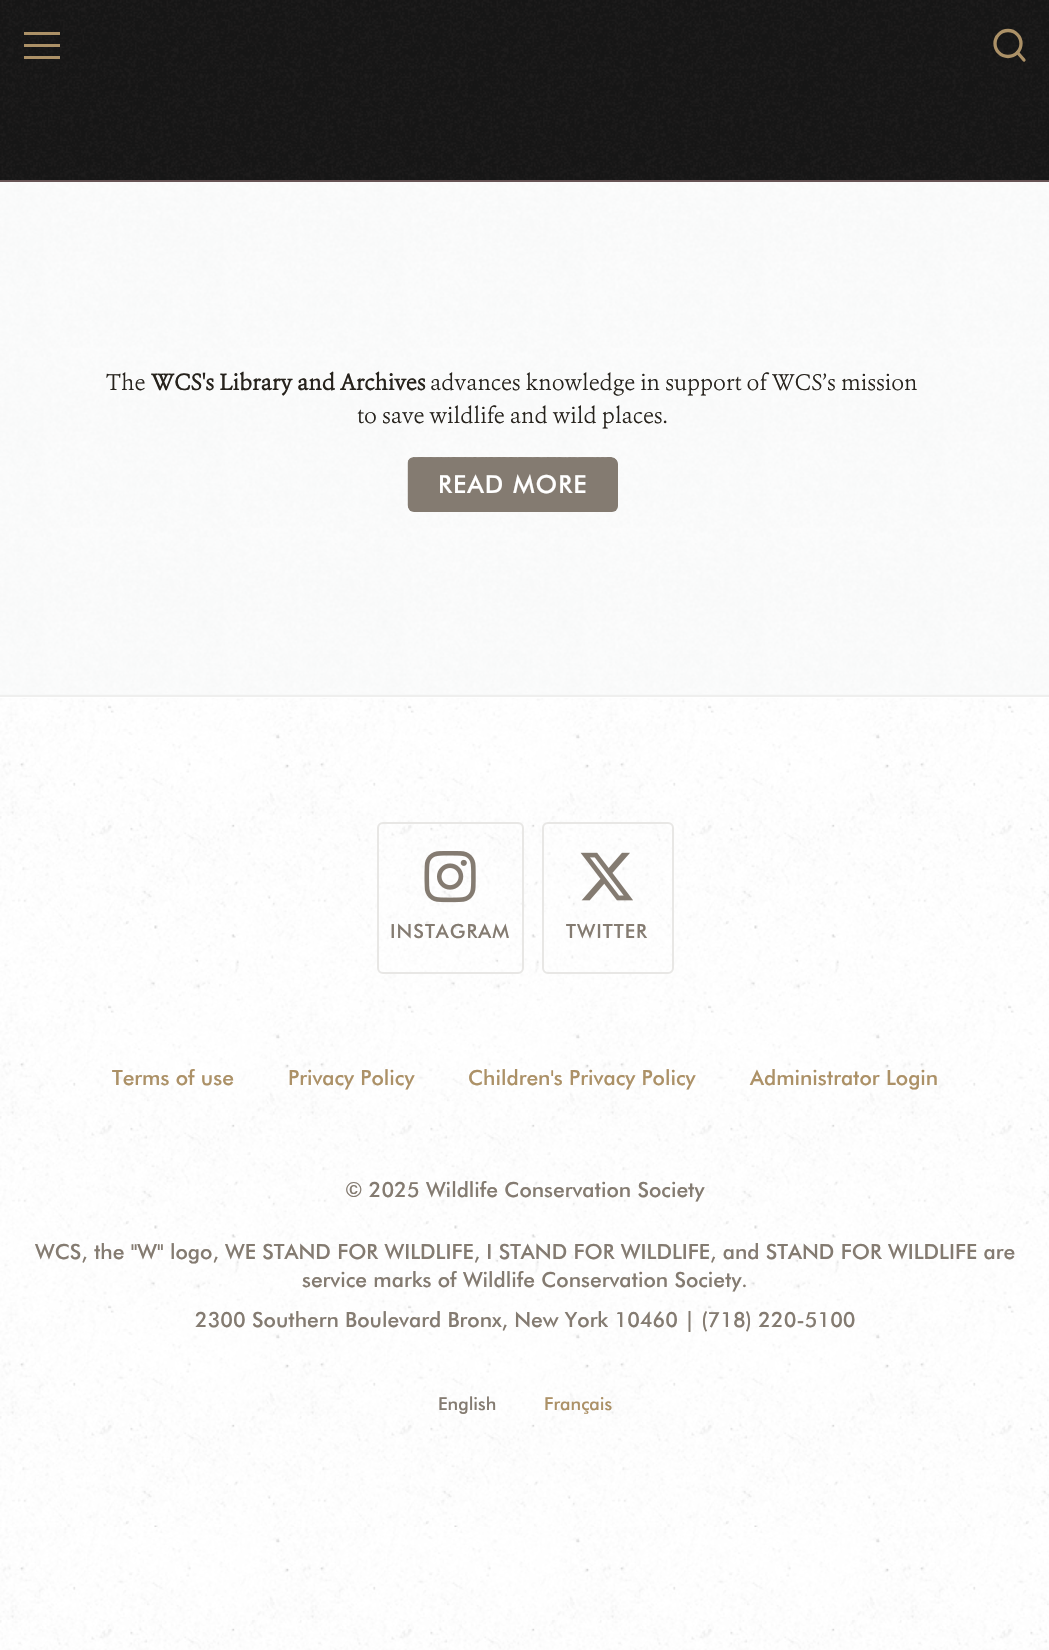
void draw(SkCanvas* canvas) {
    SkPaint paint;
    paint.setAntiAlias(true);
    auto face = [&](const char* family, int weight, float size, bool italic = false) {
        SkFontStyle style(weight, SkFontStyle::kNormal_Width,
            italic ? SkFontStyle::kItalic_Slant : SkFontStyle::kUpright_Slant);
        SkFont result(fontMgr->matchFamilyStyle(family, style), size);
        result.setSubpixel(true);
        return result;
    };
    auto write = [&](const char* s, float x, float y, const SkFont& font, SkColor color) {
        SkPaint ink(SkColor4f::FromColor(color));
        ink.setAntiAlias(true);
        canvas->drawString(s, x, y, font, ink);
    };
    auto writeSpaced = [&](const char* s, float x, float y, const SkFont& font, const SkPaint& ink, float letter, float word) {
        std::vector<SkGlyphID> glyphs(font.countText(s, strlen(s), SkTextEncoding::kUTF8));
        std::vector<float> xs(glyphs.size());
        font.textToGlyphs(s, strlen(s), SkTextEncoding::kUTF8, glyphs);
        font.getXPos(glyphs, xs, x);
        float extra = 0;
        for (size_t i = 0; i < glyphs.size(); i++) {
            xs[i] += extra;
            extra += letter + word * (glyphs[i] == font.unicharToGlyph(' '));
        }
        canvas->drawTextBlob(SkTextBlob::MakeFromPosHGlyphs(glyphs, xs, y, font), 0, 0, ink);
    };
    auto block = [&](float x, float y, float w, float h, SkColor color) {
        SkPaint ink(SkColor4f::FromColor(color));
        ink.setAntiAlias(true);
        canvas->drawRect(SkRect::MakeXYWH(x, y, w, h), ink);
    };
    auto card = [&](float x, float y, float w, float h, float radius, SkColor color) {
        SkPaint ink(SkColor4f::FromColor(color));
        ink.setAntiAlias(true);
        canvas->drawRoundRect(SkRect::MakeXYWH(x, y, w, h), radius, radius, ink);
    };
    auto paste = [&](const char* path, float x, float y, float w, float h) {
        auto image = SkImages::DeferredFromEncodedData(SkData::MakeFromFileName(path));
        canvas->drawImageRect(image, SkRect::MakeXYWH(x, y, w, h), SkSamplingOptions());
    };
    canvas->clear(SK_ColorWHITE);
    paste("pic1.png", 0, 1527, 1049, 123);
    block(0, 180, 1049, 2, SkColorSetRGB(104, 85, 86));
    paste("pic2.png", 0, 0, 1049, 180);
    block(24, 32, 36, 3, SkColorSetRGB(172, 145, 103));
    block(24, 44, 36, 3, SkColorSetRGB(172, 145, 103));
    block(24, 56, 36, 3, SkColorSetRGB(172, 145, 103));
    paint.setStyle(SkPaint::kStroke_Style);
    paint.setStrokeWidth(3.3f);
    paint.setColor(SkColorSetRGB(172, 145, 103));
    canvas->drawCircle(1008, 43.5f, 13, paint);
    paint.setStrokeCap(SkPaint::kRound_Cap);
    paint.setStrokeJoin(SkPaint::kRound_Join);
    canvas->drawPath(SkPathBuilder().moveTo(1017.5f, 52.5f).lineTo(1024, 60).detach(), paint);
    block(0, 182, 1049, 513, SkColorSetRGB(247, 248, 248));
    paste("pic3.png", 0, 182, 1049, 512);
    auto kFont1 = face("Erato", 300, 22.3f);
    write("The", 106, 390, kFont1, SkColorSetRGB(39, 35, 29));
    auto kFont2 = face("Erato", 700, 22.3f);
    write("WCS's Library and Archives", 151, 390, kFont2, SkColorSetRGB(39, 35, 29));
    write("advances knowledge in support of WCS’s mission", 430, 390, kFont1, SkColorSetRGB(39, 35, 29));
    write("to save wildlife and wild places.", 357, 423, kFont1, SkColorSetRGB(39, 35, 29));
    paste("pic4.png", 407, 457, 211, 54);
    card(408, 458, 210, 54, 6, SkColorSetRGB(132, 123, 113));
    auto kFont3 = face("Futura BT", 500, 25);
    paint.setStyle(SkPaint::kFill_Style);
    paint.setColor(SK_ColorWHITE);
    writeSpaced("READ MORE", 438, 493, kFont3, paint, 1, 0);
    paste("pic5.png", 0, 698, 1049, 829);
    block(0, 695, 1049, 2, SkColorSetRGB(239, 239, 238));
    paint.setStyle(SkPaint::kStroke_Style);
    paint.setStrokeWidth(2);
    paint.setStrokeCap(SkPaint::kButt_Cap);
    paint.setStrokeJoin(SkPaint::kMiter_Join);
    paint.setColor(SkColorSetRGB(232, 231, 229));
    canvas->drawRoundRect(SkRect::MakeXYWH(378, 823, 145, 150), 5, 5, paint);
    paste("pic6.png", 424, 851, 52, 52);
    auto kFont4 = face("Futura BT", 500, 19.5f);
    paint.setStyle(SkPaint::kFill_Style);
    paint.setColor(SkColorSetRGB(132, 123, 113));
    writeSpaced("INSTAGRAM", 390, 938, kFont4, paint, 1, 0);
    paint.setStyle(SkPaint::kStroke_Style);
    paint.setColor(SkColorSetRGB(232, 231, 229));
    canvas->drawRoundRect(SkRect::MakeXYWH(543, 823, 130, 150), 5, 5, paint);
    paste("pic7.png", 580, 852, 53, 49);
    paint.setStyle(SkPaint::kFill_Style);
    paint.setColor(SkColorSetRGB(132, 123, 113));
    writeSpaced("TWITTER", 566, 938, kFont4, paint, 1, 0);
    auto kFont5 = face("Futura BT", 500, 21);
    write("Terms of use", 112, 1085, kFont5, SkColorSetRGB(172, 145, 103));
    write("Privacy Policy", 288, 1085, kFont5, SkColorSetRGB(172, 145, 103));
    write("Children's Privacy Policy", 468, 1085, kFont5, SkColorSetRGB(172, 145, 103));
    write("Administrator Login", 750, 1085, kFont5, SkColorSetRGB(172, 145, 103));
    write("© 2025 Wildlife Conservation Society", 345, 1197, kFont5, SkColorSetRGB(132, 123, 113));
    write("WCS, the \"W\" logo, WE STAND FOR WILDLIFE, I STAND FOR WILDLIFE, and STAND FOR WILDLIFE are", 35, 1259, kFont5, SkColorSetRGB(132, 123, 113));
    write("service marks of Wildlife Conservation Society.", 302, 1287, kFont5, SkColorSetRGB(132, 123, 113));
    write("2300 Southern Boulevard Bronx, New York 10460 | (718) 220-5100", 195, 1327, kFont5, SkColorSetRGB(132, 123, 113));
    auto kFont6 = face("Futura BT", 500, 18);
    write("English", 438, 1410, kFont6, SkColorSetRGB(132, 123, 113));
    write("Français", 544, 1410, kFont6, SkColorSetRGB(172, 145, 103));
}
